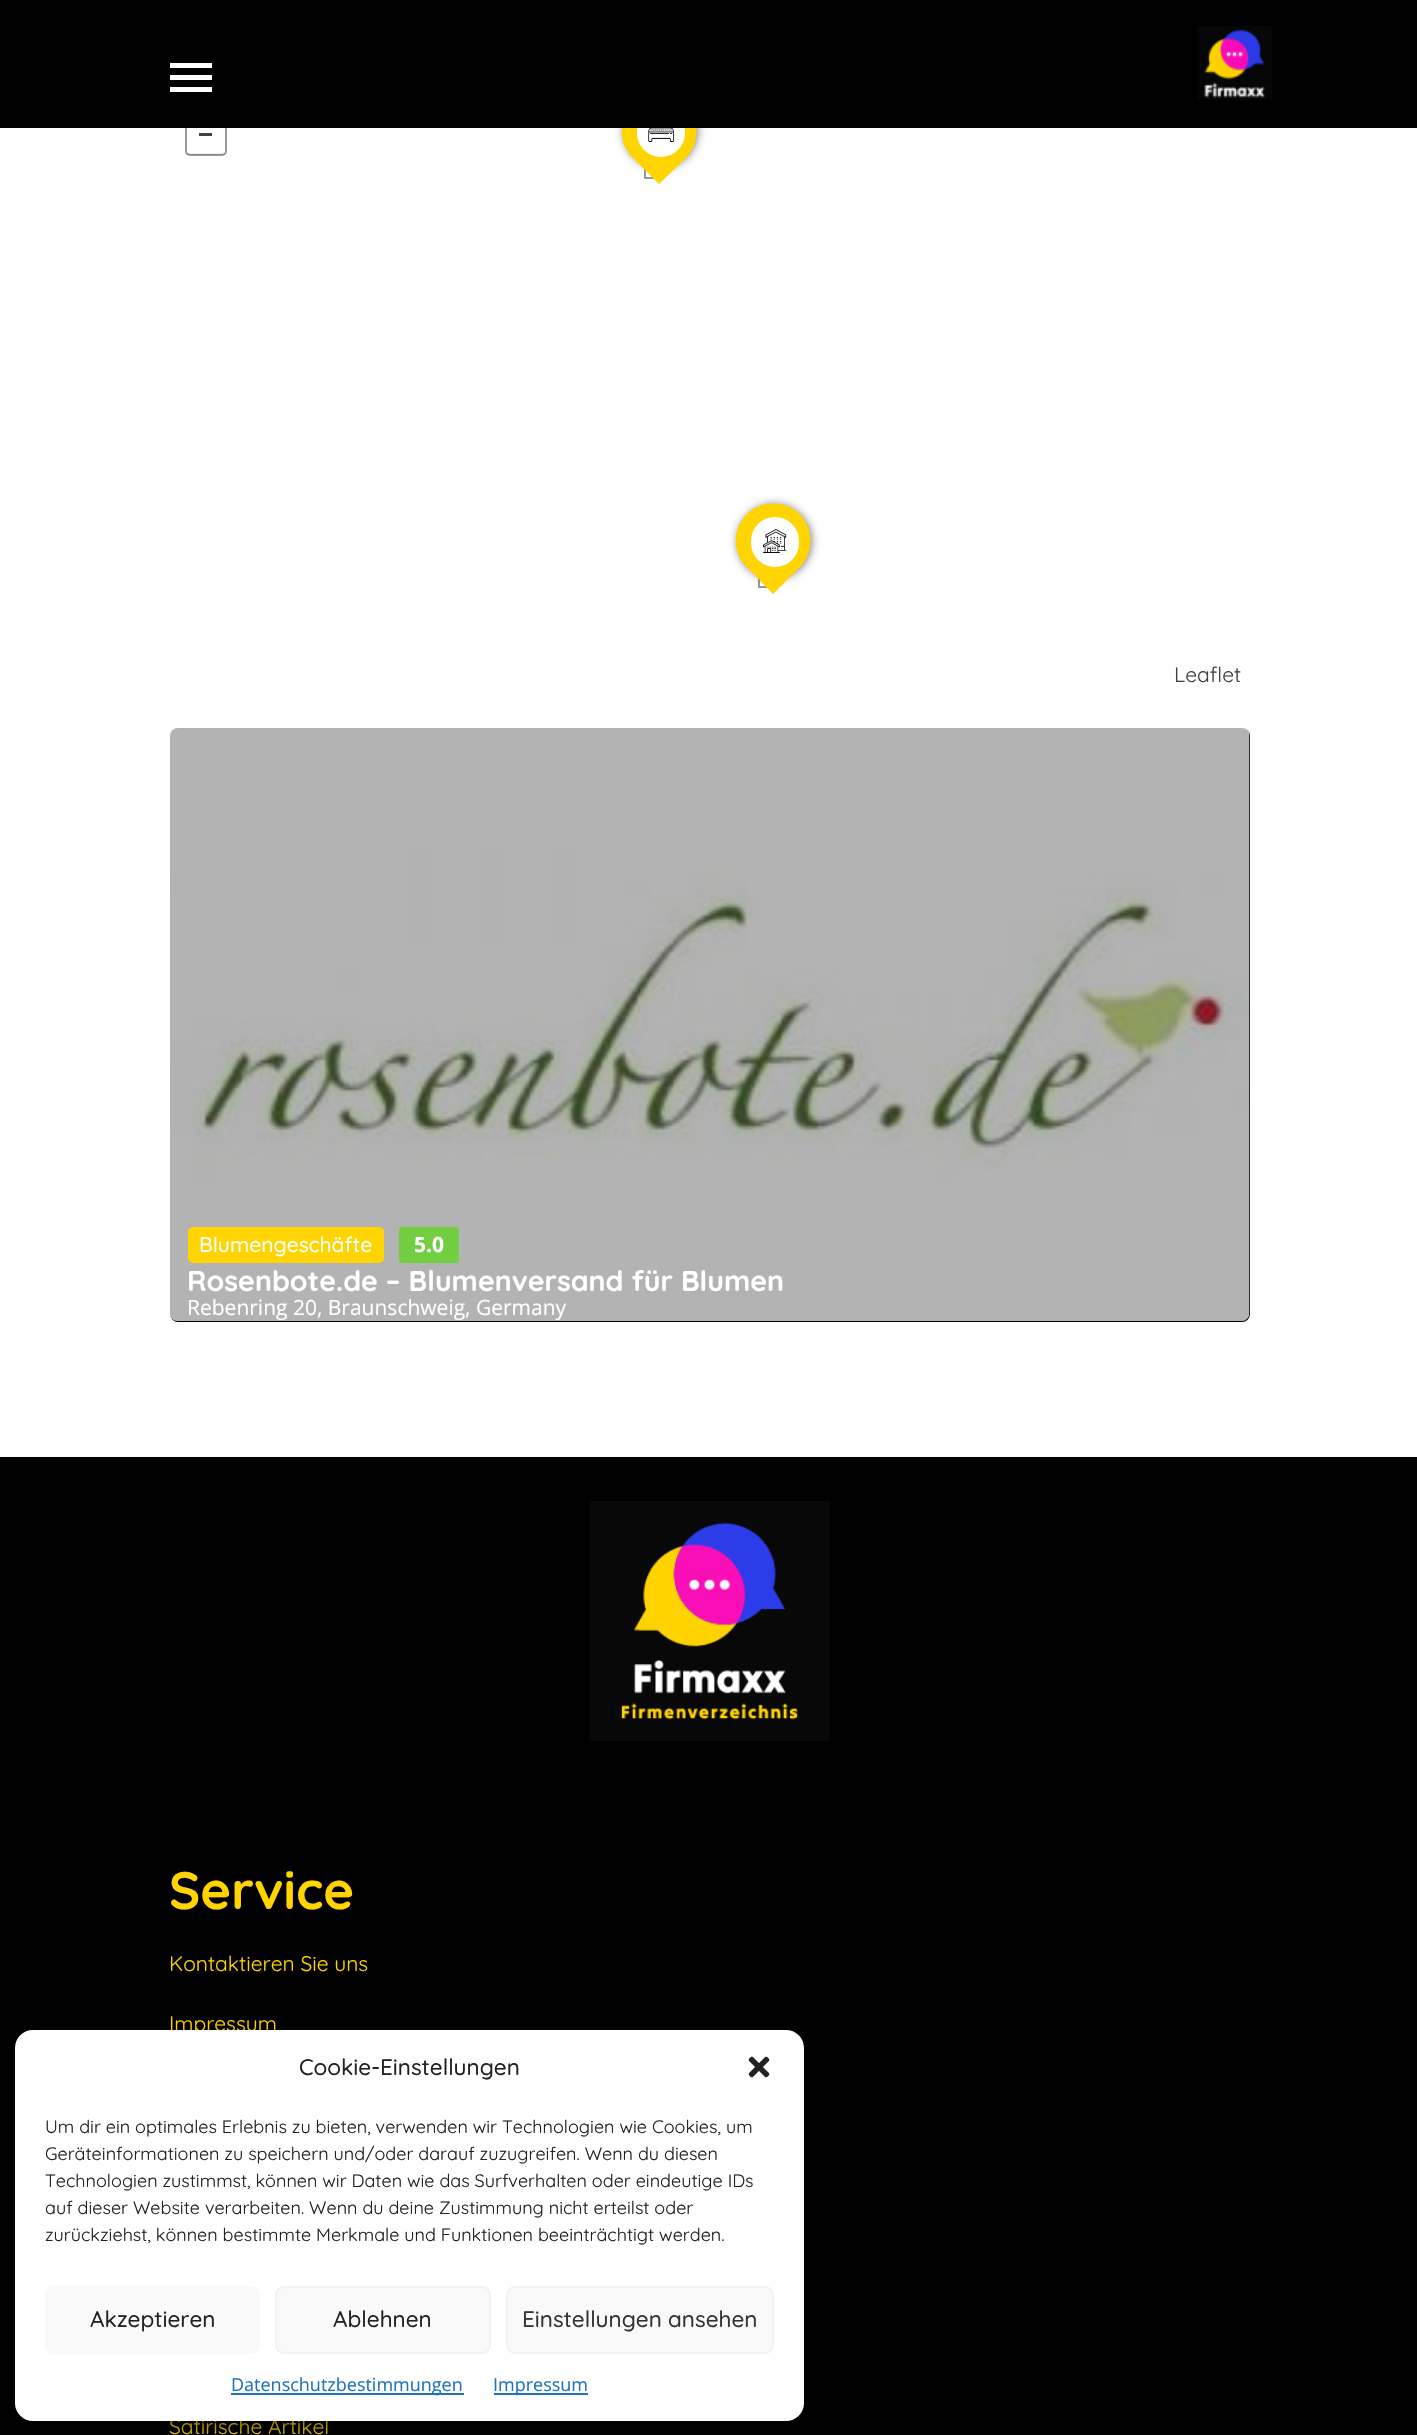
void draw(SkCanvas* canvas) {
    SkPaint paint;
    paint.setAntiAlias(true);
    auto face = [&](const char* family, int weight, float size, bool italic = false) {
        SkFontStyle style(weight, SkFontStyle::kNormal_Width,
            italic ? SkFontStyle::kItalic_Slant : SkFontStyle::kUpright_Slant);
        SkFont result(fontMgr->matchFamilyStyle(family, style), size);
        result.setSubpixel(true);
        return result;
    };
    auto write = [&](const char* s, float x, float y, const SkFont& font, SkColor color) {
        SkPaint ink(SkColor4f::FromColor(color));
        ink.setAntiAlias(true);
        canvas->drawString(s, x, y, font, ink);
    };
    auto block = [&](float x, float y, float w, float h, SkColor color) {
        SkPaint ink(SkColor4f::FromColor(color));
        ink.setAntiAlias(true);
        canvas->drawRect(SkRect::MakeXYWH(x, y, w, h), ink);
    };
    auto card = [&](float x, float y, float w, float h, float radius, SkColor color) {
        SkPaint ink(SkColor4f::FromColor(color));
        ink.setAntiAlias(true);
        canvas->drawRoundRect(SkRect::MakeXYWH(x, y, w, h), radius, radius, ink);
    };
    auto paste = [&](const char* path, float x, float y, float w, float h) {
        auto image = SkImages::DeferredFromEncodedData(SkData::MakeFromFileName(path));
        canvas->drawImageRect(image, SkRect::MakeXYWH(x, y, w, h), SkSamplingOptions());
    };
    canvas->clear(SK_ColorWHITE);
    paint.setStyle(SkPaint::kStroke_Style);
    paint.setStrokeWidth(2);
    paint.setColor(SkColorSetRGB(153, 153, 153));
    canvas->drawRect(SkRect::MakeXYWH(645, 162, 16, 16), paint);
    paint.setStyle(SkPaint::kFill_Style);
    paint.setColor(SkColorSetARGB(120, 0, 0, 0));
    paint.setMaskFilter(SkMaskFilter::MakeBlur(kNormal_SkBlurStyle, 4));
    canvas->drawRoundRect(SkRect::MakeXYWH(623, 93, 75, 75), 37.5f, 37.5f, paint);
    paint.setMaskFilter(nullptr);
    paint.setColor(SkColorSetRGB(255, 212, 0));
    canvas->drawPath(SkPathBuilder().moveTo(633, 105).cubicTo(647, 90, 671, 90, 686, 105).cubicTo(700, 119, 700, 143, 686, 158).lineTo(659, 184).lineTo(633, 158).cubicTo(618, 143, 618, 119, 633, 105).close().detach(), paint);
    paint.setColor(SK_ColorWHITE);
    canvas->drawRoundRect(SkRect::MakeXYWH(636, 106, 50, 52), 25, 25, paint);
    paint.setStyle(SkPaint::kStroke_Style);
    paint.setColor(SkColorSetRGB(255, 212, 0));
    canvas->drawRoundRect(SkRect::MakeXYWH(636, 106, 50, 52), 25, 25, paint);
    paint.setColor(SkColorSetRGB(153, 153, 153));
    canvas->drawRoundRect(SkRect::MakeXYWH(186, 76, 40, 79), 4, 4, paint);
    block(0, 0, 1417, 128, SK_ColorBLACK);
    block(170, 63, 42, 5, SK_ColorWHITE);
    block(170, 75, 42, 5, SK_ColorWHITE);
    block(170, 87, 42, 5, SK_ColorWHITE);
    paste("pic1.png", 1197, 26, 75, 74);
    paste("pic2.png", 648, 128, 26, 14);
    canvas->drawRect(SkRect::MakeXYWH(759, 571, 16, 16), paint);
    paint.setStyle(SkPaint::kFill_Style);
    paint.setColor(SkColorSetARGB(120, 0, 0, 0));
    paint.setMaskFilter(SkMaskFilter::MakeBlur(kNormal_SkBlurStyle, 4));
    canvas->drawRoundRect(SkRect::MakeXYWH(737, 504, 75, 75), 37.5f, 37.5f, paint);
    paint.setMaskFilter(nullptr);
    paint.setColor(SkColorSetRGB(255, 212, 0));
    canvas->drawPath(SkPathBuilder().moveTo(747, 514).cubicTo(761, 500, 785, 500, 800, 514).cubicTo(814, 529, 814, 553, 800, 567).lineTo(773, 594).lineTo(747, 567).cubicTo(732, 553, 732, 529, 747, 514).close().detach(), paint);
    paint.setColor(SK_ColorWHITE);
    canvas->drawRoundRect(SkRect::MakeXYWH(750, 516, 50, 52), 25, 25, paint);
    paint.setStyle(SkPaint::kStroke_Style);
    paint.setColor(SkColorSetRGB(255, 212, 0));
    canvas->drawRoundRect(SkRect::MakeXYWH(750, 516, 50, 52), 25, 25, paint);
    paste("pic3.png", 763, 529, 24, 24);
    block(199, 133, 13, 3, SkColorSetRGB(64, 64, 64));
    block(186, 153, 39, 2, SkColorSetARGB(20, 0, 0, 0));
    auto kFont1 = face("Quicksand", 400, 21);
    write("Leaflet", 1174, 682, kFont1, SkColorSetRGB(64, 64, 64));
    card(170, 728, 1080, 594, 8, SK_ColorBLACK);
    paste("pic4.png", 170, 728, 1080, 593);
    card(188, 1227, 196, 36, 5, SkColorSetRGB(255, 212, 0));
    auto kFont2 = face("Quicksand", 500, 21);
    write("Blumengeschäfte", 199, 1252, kFont2, SK_ColorWHITE);
    card(399, 1227, 60, 36, 3, SkColorSetRGB(115, 207, 66));
    auto kFont3 = face("Open Sans", 700, 21);
    write("5.0", 414, 1252, kFont3, SK_ColorWHITE);
    auto kFont4 = face("Quicksand", 700, 28.5f);
    write("Rosenbote.de – Blumenversand für Blumen", 187, 1291, kFont4, SK_ColorWHITE);
    auto kFont5 = face("Open Sans", 400, 21);
    write("Rebenring 20, Braunschweig, Germany", 187, 1315, kFont5, SK_ColorWHITE);
    block(0, 1457, 1417, 978, SK_ColorBLACK);
    paste("pic5.png", 589, 1501, 241, 240);
    auto kFont6 = face("Quicksand", 700, 52.5f);
    write("Service", 169, 1909, kFont6, SkColorSetRGB(255, 212, 0));
    write("Kontaktieren Sie uns", 169, 1971, kFont1, SkColorSetRGB(255, 212, 0));
    write("Impressum", 169, 2031, kFont1, SkColorSetRGB(255, 212, 0));
    write("Satirische Artikel", 169, 2434, kFont1, SkColorSetRGB(255, 212, 0));
    paint.setStyle(SkPaint::kFill_Style);
    paint.setColor(SkColorSetARGB(59, 0, 0, 0));
    paint.setMaskFilter(SkMaskFilter::MakeBlur(kNormal_SkBlurStyle, 4.5f));
    canvas->drawRoundRect(SkRect::MakeXYWH(15, 2039, 789, 391), 18, 18, paint);
    paint.setMaskFilter(nullptr);
    paint.setColor(SkColorSetARGB(48, 0, 0, 0));
    paint.setMaskFilter(SkMaskFilter::MakeBlur(kNormal_SkBlurStyle, 15));
    canvas->drawRoundRect(SkRect::MakeXYWH(15, 2045, 789, 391), 18, 18, paint);
    paint.setMaskFilter(nullptr);
    card(15, 2030, 789, 391, 18, SK_ColorWHITE);
    auto kFont7 = face("Quicksand", 500, 22.5f);
    write("Cookie-Einstellungen", 299, 2075, kFont7, SkColorSetRGB(34, 34, 34));
    paste("pic6.png", 748, 2056, 22, 22);
    auto kFont8 = face("Quicksand", 400, 18);
    write("Um dir ein optimales Erlebnis zu bieten, verwenden wir Technologien wie Cookies, um", 45, 2133, kFont8, SkColorSetRGB(34, 34, 34));
    write("Geräteinformationen zu speichern und/oder darauf zuzugreifen. Wenn du diesen", 45, 2160, kFont8, SkColorSetRGB(34, 34, 34));
    write("Technologien zustimmst, können wir Daten wie das Surfverhalten oder eindeutige IDs", 45, 2187, kFont8, SkColorSetRGB(34, 34, 34));
    write("auf dieser Website verarbeiten. Wenn du deine Zustimmung nicht erteilst oder", 45, 2214, kFont8, SkColorSetRGB(34, 34, 34));
    write("zurückziehst, können bestimmte Merkmale und Funktionen beeinträchtigt werden.", 45, 2241, kFont8, SkColorSetRGB(34, 34, 34));
    card(45, 2286, 215, 68, 9, SkColorSetRGB(249, 249, 249));
    write("Akzeptieren", 90, 2327, kFont7, SkColorSetRGB(34, 34, 34));
    paint.setColor(SkColorSetRGB(249, 249, 249));
    canvas->drawRoundRect(SkRect::MakeXYWH(276, 2287, 214, 66), 8, 8, paint);
    paint.setStyle(SkPaint::kStroke_Style);
    paint.setColor(SkColorSetRGB(242, 242, 242));
    canvas->drawRoundRect(SkRect::MakeXYWH(276, 2287, 214, 66), 8, 8, paint);
    write("Ablehnen", 333, 2327, kFont7, SkColorSetRGB(34, 34, 34));
    paint.setStyle(SkPaint::kFill_Style);
    paint.setColor(SkColorSetRGB(249, 249, 249));
    canvas->drawRoundRect(SkRect::MakeXYWH(507, 2287, 266, 66), 8, 8, paint);
    paint.setStyle(SkPaint::kStroke_Style);
    paint.setColor(SkColorSetRGB(242, 242, 242));
    canvas->drawRoundRect(SkRect::MakeXYWH(507, 2287, 266, 66), 8, 8, paint);
    write("Einstellungen ansehen", 522, 2327, kFont7, SkColorSetRGB(51, 51, 51));
    block(231, 2393, 233, 2, SkColorSetRGB(30, 115, 190));
    auto kFont9 = face("Open Sans", 400, 18);
    write("Datenschutzbestimmungen", 231, 2391, kFont9, SkColorSetRGB(30, 115, 190));
    block(494, 2393, 94, 2, SkColorSetRGB(30, 115, 190));
    write("Impressum", 493, 2391, kFont9, SkColorSetRGB(30, 115, 190));
}
